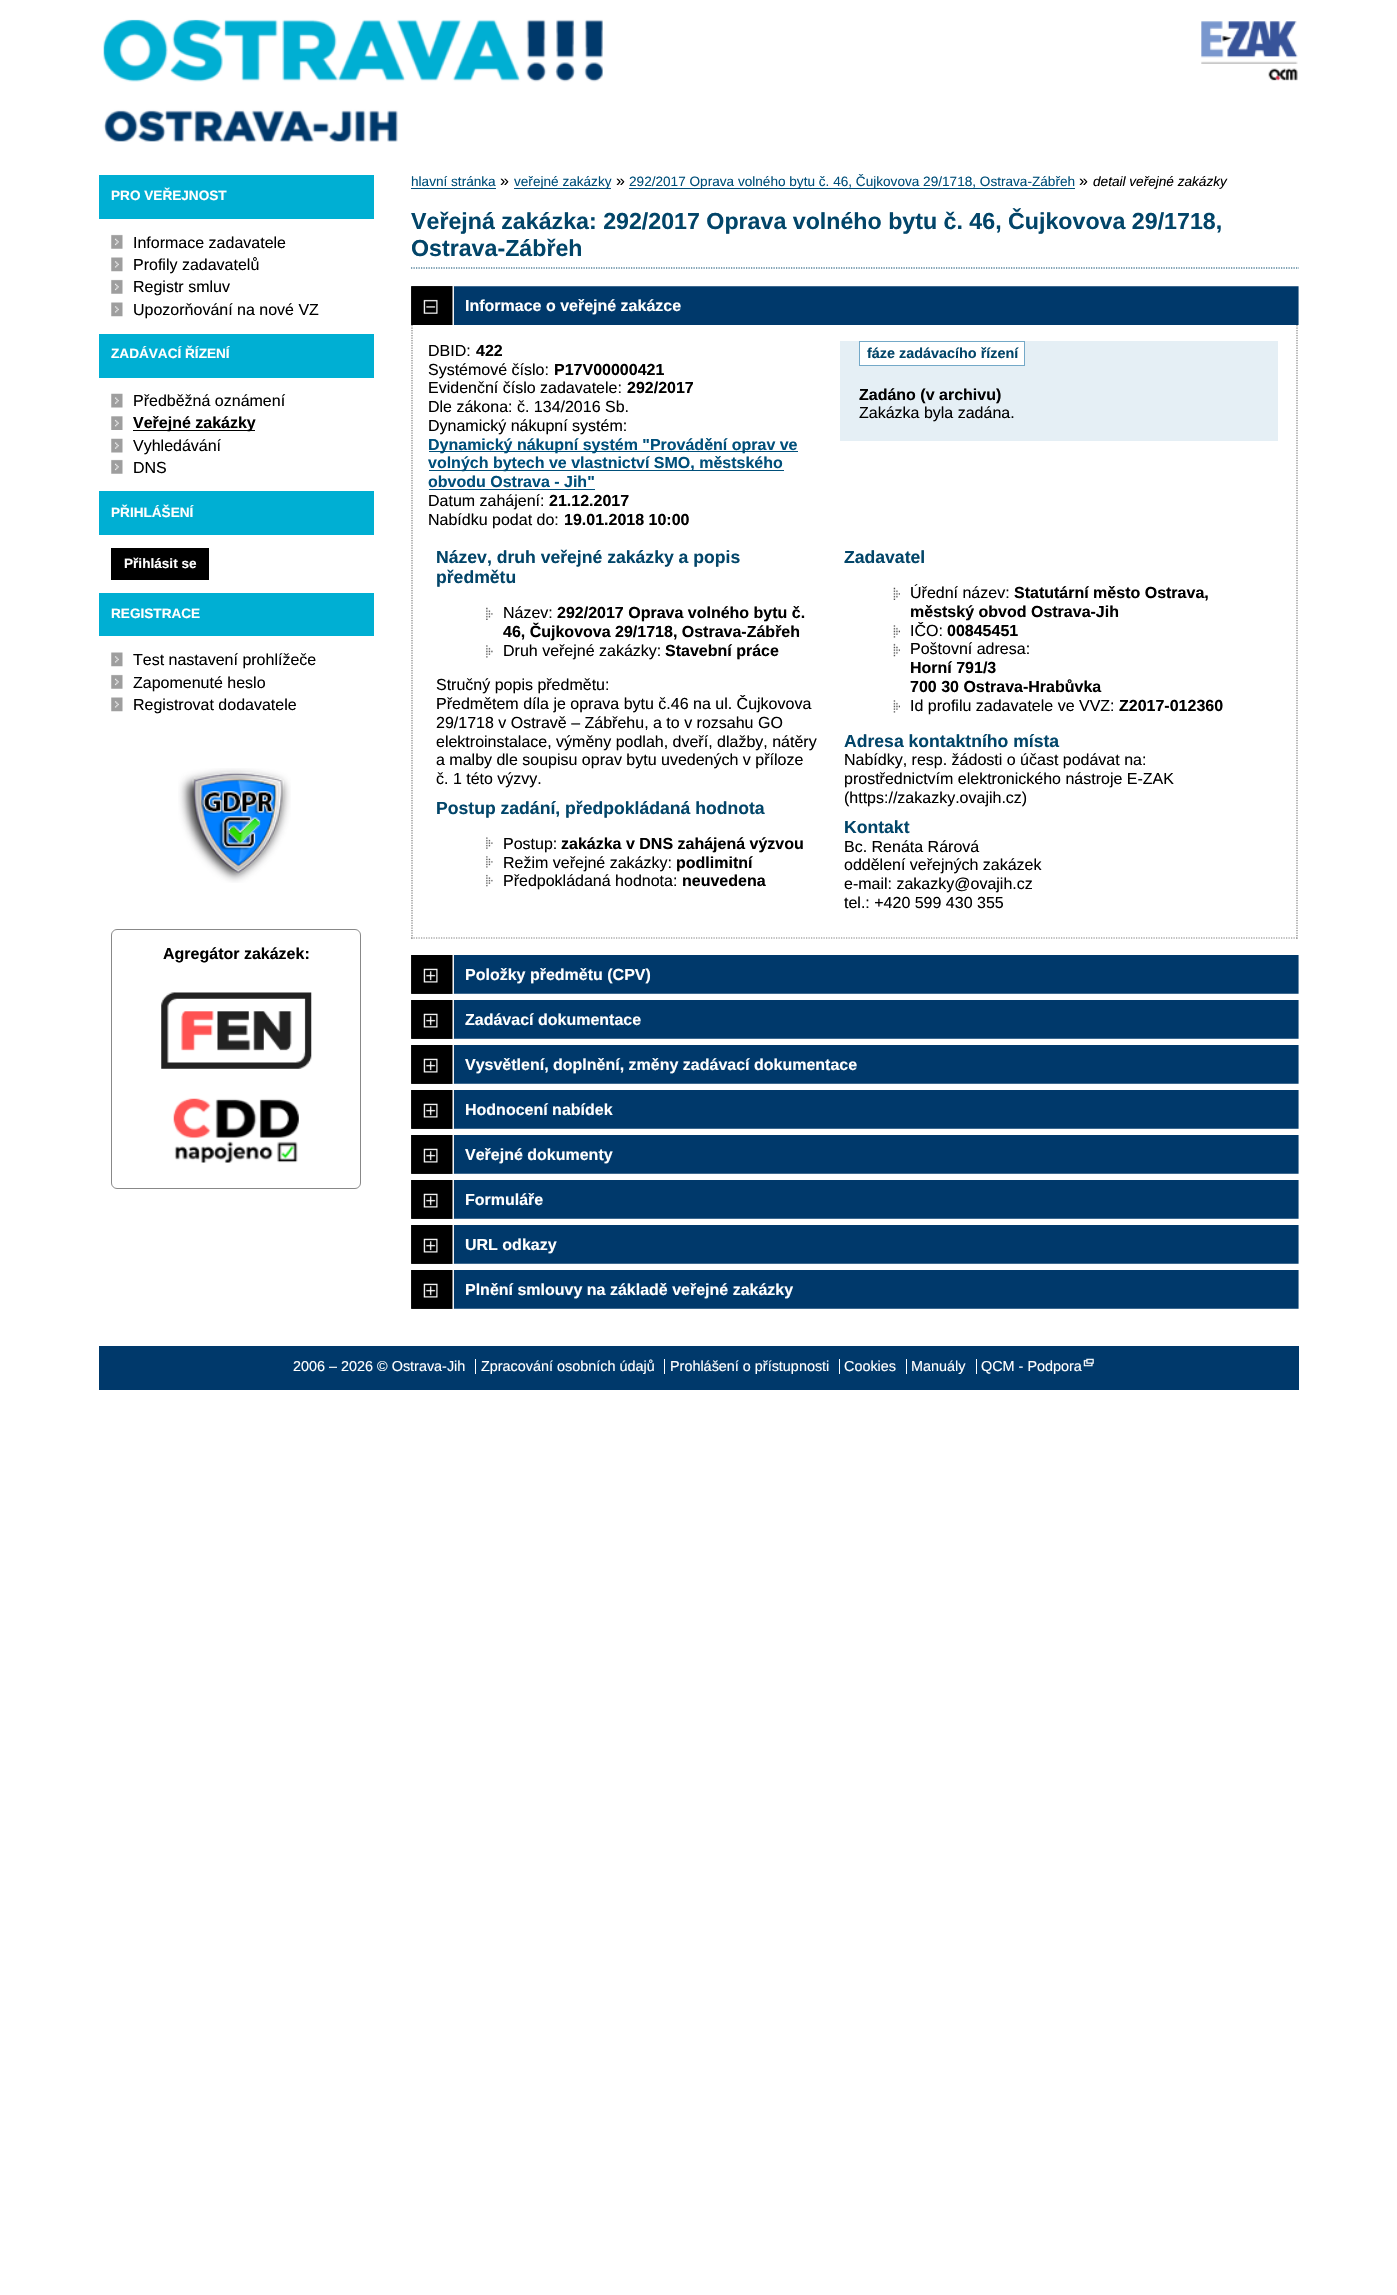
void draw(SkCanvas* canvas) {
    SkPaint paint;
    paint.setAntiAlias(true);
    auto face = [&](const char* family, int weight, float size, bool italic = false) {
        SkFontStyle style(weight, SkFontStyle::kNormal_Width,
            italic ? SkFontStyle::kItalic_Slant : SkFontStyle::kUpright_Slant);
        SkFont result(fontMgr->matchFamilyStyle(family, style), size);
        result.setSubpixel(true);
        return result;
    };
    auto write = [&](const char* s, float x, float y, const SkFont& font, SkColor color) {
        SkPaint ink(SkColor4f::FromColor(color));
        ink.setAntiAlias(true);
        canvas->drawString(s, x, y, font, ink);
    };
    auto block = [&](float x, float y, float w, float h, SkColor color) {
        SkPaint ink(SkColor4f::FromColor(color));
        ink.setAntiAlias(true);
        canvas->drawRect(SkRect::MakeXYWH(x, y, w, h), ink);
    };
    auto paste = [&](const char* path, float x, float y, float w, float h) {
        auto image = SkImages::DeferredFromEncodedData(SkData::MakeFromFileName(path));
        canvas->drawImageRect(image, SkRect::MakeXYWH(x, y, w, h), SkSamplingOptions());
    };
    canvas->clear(SK_ColorWHITE);
    paste("pic1.png", 99, 19, 504, 123);
    paste("pic2.png", 1201, 21, 97, 60);
    block(99, 175, 275, 44, SkColorSetRGB(0, 175, 211));
    auto kFont1 = face("Liberation Sans", 700, 13.6f);
    write("PRO VEŘEJNOST", 111, 200, kFont1, SK_ColorWHITE);
    paste("pic3.png", 111, 234, 12, 15);
    auto kFont2 = face("Liberation Sans", 400, 16);
    write("Informace zadavatele", 133, 248, kFont2, SK_ColorBLACK);
    paste("pic4.png", 111, 257, 12, 15);
    write("Profily zadavatelů", 133, 270, kFont2, SK_ColorBLACK);
    paste("pic3.png", 111, 279, 12, 15);
    write("Registr smluv", 133, 292, kFont2, SK_ColorBLACK);
    paste("pic4.png", 111, 302, 12, 15);
    write("Upozorňování na nové VZ", 133, 315, kFont2, SK_ColorBLACK);
    block(99, 334, 275, 44, SkColorSetRGB(0, 175, 211));
    write("ZADÁVACÍ ŘÍZENÍ", 111, 358, kFont1, SK_ColorWHITE);
    paste("pic5.png", 111, 393, 12, 15);
    write("Předběžná oznámení", 133, 406, kFont2, SK_ColorBLACK);
    paste("pic6.png", 111, 416, 12, 14);
    block(133, 430, 122, 1, SK_ColorBLACK);
    auto kFont3 = face("Liberation Sans", 700, 16);
    write("Veřejné zakázky", 133, 428, kFont3, SK_ColorBLACK);
    paste("pic5.png", 111, 438, 12, 15);
    write("Vyhledávání", 133, 451, kFont2, SK_ColorBLACK);
    paste("pic3.png", 111, 459, 12, 15);
    write("DNS", 133, 473, kFont2, SK_ColorBLACK);
    block(99, 491, 275, 44, SkColorSetRGB(0, 175, 211));
    write("PŘIHLÁŠENÍ", 111, 517, kFont1, SK_ColorWHITE);
    block(111, 548, 98, 32, SK_ColorBLACK);
    write("Přihlásit se", 124, 568, kFont1, SK_ColorWHITE);
    block(99, 593, 275, 43, SkColorSetRGB(0, 175, 211));
    write("REGISTRACE", 111, 618, kFont1, SK_ColorWHITE);
    paste("pic4.png", 111, 652, 12, 15);
    write("Test nastavení prohlížeče", 133, 665, kFont2, SK_ColorBLACK);
    paste("pic3.png", 111, 674, 12, 15);
    write("Zapomenuté heslo", 133, 688, kFont2, SK_ColorBLACK);
    paste("pic4.png", 111, 697, 12, 15);
    write("Registrovat dodavatele", 133, 710, kFont2, SK_ColorBLACK);
    paste("pic7.png", 178, 768, 113, 115);
    paint.setStyle(SkPaint::kStroke_Style);
    paint.setStrokeWidth(1);
    paint.setColor(SkColorSetRGB(136, 136, 136));
    canvas->drawRoundRect(SkRect::MakeXYWH(111.5f, 929.5f, 249, 259), 5.5f, 5.5f, paint);
    write("Agregátor zakázek:", 163, 959, kFont3, SK_ColorBLACK);
    paste("pic8.png", 161, 992, 151, 77);
    paste("pic9.png", 173, 1098, 126, 65);
    auto kFont4 = face("Liberation Sans", 400, 13.6f);
    write("hlavní stránka", 411, 186, kFont4, SkColorSetRGB(0, 79, 122));
    block(411, 188, 85, 1, SkColorSetRGB(0, 79, 122));
    write("»", 500, 186, kFont2, SK_ColorBLACK);
    block(514, 188, 97, 1, SkColorSetRGB(0, 79, 122));
    write("veřejné zakázky", 514, 186, kFont4, SkColorSetRGB(0, 79, 122));
    write("»", 616, 186, kFont2, SK_ColorBLACK);
    block(629, 188, 446, 1, SkColorSetRGB(0, 79, 122));
    write("292/2017 Oprava volného bytu č. 46, Čujkovova 29/1718, Ostrava-Zábřeh", 629, 186, kFont4, SkColorSetRGB(0, 79, 122));
    write("»", 1079, 186, kFont2, SK_ColorBLACK);
    auto kFont5 = face("Liberation Sans", 400, 13.6f, true);
    write("detail veřejné zakázky", 1093, 186, kFont5, SK_ColorBLACK);
    paint.setStrokeWidth(1.2f);
    paint.setColor(SkColorSetRGB(2, 69, 105));
    paint.setPathEffect(SkDashPathEffect::Make({{1.25f, 1.25f}}, 0));
    canvas->drawPath(SkPathBuilder().moveTo(411, 268).lineTo(1299, 268).detach(), paint);
    paint.setPathEffect(nullptr);
    auto kFont6 = face("Liberation Sans", 700, 23.2f);
    write("Veřejná zakázka: 292/2017 Oprava volného bytu č. 46, Čujkovova 29/1718,", 411, 229, kFont6, SkColorSetRGB(2, 69, 105));
    write("Ostrava-Zábřeh", 411, 256, kFont6, SkColorSetRGB(2, 69, 105));
    paste("pic10.png", 411, 286, 888, 39);
    paste("pic11.png", 411, 286, 43, 39);
    write("Informace o veřejné zakázce", 465, 311, kFont3, SK_ColorWHITE);
    paint.setColor(SkColorSetRGB(127, 127, 127));
    paint.setPathEffect(SkDashPathEffect::Make({{1.25f, 1.25f}}, 0));
    canvas->drawPath(SkPathBuilder().moveTo(1297, 325).lineTo(1297, 939).detach(), paint);
    paint.setPathEffect(nullptr);
    paint.setPathEffect(SkDashPathEffect::Make({{1.25f, 1.25f}}, 0));
    canvas->drawPath(SkPathBuilder().moveTo(411, 938).lineTo(1297.5f, 938).detach(), paint);
    paint.setPathEffect(nullptr);
    paint.setPathEffect(SkDashPathEffect::Make({{1.25f, 1.25f}}, 0));
    canvas->drawPath(SkPathBuilder().moveTo(412, 325).lineTo(412, 939).detach(), paint);
    paint.setPathEffect(nullptr);
    write("DBID:", 428, 356, kFont2, SK_ColorBLACK);
    write("422", 476, 356, kFont3, SK_ColorBLACK);
    block(840, 341, 438, 100, SkColorSetRGB(229, 239, 245));
    paint.setStyle(SkPaint::kFill_Style);
    paint.setColor(SK_ColorWHITE);
    canvas->drawRect(SkRect::MakeXYWH(859.5f, 341.5f, 165, 24), paint);
    paint.setStyle(SkPaint::kStroke_Style);
    paint.setStrokeWidth(1);
    paint.setColor(SkColorSetRGB(116, 169, 200));
    canvas->drawRect(SkRect::MakeXYWH(859.5f, 341.5f, 165, 24), paint);
    auto kFont7 = face("Liberation Sans", 700, 14.4f);
    write("fáze zadávacího řízení", 867, 358, kFont7, SkColorSetRGB(2, 69, 105));
    write("Zadáno (v archivu)", 859, 400, kFont3, SK_ColorBLACK);
    write("Zakázka byla zadána.", 859, 418, kFont2, SK_ColorBLACK);
    write("Systémové číslo:", 428, 375, kFont2, SK_ColorBLACK);
    write("P17V00000421", 554, 375, kFont3, SK_ColorBLACK);
    write("Evidenční číslo zadavatele:", 428, 393, kFont2, SK_ColorBLACK);
    write("292/2017", 627, 393, kFont3, SK_ColorBLACK);
    write("Dle zákona: č. 134/2016 Sb.", 428, 412, kFont2, SK_ColorBLACK);
    write("Dynamický nákupní systém:", 428, 431, kFont2, SK_ColorBLACK);
    block(429, 451, 369, 1, SkColorSetRGB(0, 79, 122));
    write("Dynamický nákupní systém \"Provádění oprav ve", 428, 450, kFont3, SkColorSetRGB(0, 79, 122));
    block(429, 470, 355, 1, SkColorSetRGB(0, 79, 122));
    write("volných bytech ve vlastnictví SMO, městského", 428, 468, kFont3, SkColorSetRGB(0, 79, 122));
    write("obvodu Ostrava - Jih\"", 428, 487, kFont3, SkColorSetRGB(0, 79, 122));
    block(429, 489, 166, 1, SkColorSetRGB(0, 79, 122));
    write("Datum zahájení:", 428, 506, kFont2, SK_ColorBLACK);
    write("21.12.2017", 549, 506, kFont3, SK_ColorBLACK);
    write("Nabídku podat do:", 428, 525, kFont2, SK_ColorBLACK);
    write("19.01.2018 10:00", 564, 525, kFont3, SK_ColorBLACK);
    auto kFont8 = face("Liberation Sans", 700, 17.6f);
    write("Název, druh veřejné zakázky a popis", 436, 563, kFont8, SkColorSetRGB(2, 69, 105));
    write("předmětu", 436, 583, kFont8, SkColorSetRGB(2, 69, 105));
    paste("pic12.png", 486, 607, 7, 13);
    write("Název:", 503, 618, kFont2, SK_ColorBLACK);
    write("292/2017 Oprava volného bytu č.", 557, 618, kFont3, SK_ColorBLACK);
    write("46, Čujkovova 29/1718, Ostrava-Zábřeh", 503, 637, kFont3, SK_ColorBLACK);
    paste("pic13.png", 486, 645, 7, 13);
    write("Druh veřejné zakázky:", 503, 656, kFont2, SK_ColorBLACK);
    write("Stavební práce", 665, 656, kFont3, SK_ColorBLACK);
    write("Stručný popis předmětu:", 436, 690, kFont2, SK_ColorBLACK);
    write("Předmětem díla je oprava bytu č.46 na ul. Čujkovova", 436, 709, kFont2, SK_ColorBLACK);
    write("29/1718 v Ostravě – Zábřehu, a to v rozsahu GO", 436, 728, kFont2, SK_ColorBLACK);
    write("elektroinstalace, výměny podlah, dveří, dlažby, nátěry", 436, 747, kFont2, SK_ColorBLACK);
    write("a malby dle soupisu oprav bytu uvedených v příloze", 436, 765, kFont2, SK_ColorBLACK);
    write("č. 1 této výzvy.", 436, 784, kFont2, SK_ColorBLACK);
    write("Postup zadání, předpokládaná hodnota", 436, 814, kFont8, SkColorSetRGB(2, 69, 105));
    paste("pic14.png", 486, 837, 7, 12);
    write("Postup:", 503, 849, kFont2, SK_ColorBLACK);
    write("zakázka v DNS zahájená výzvou", 561, 849, kFont3, SK_ColorBLACK);
    paste("pic15.png", 486, 856, 7, 12);
    write("Režim veřejné zakázky:", 503, 868, kFont2, SK_ColorBLACK);
    write("podlimitní", 676, 868, kFont3, SK_ColorBLACK);
    paste("pic16.png", 486, 874, 7, 13);
    write("Předpokládaná hodnota:", 503, 886, kFont2, SK_ColorBLACK);
    write("neuvedena", 682, 886, kFont3, SK_ColorBLACK);
    write("Zadavatel", 844, 563, kFont8, SkColorSetRGB(2, 69, 105));
    paste("pic17.png", 893, 587, 7, 13);
    write("Úřední název:", 910, 598, kFont2, SK_ColorBLACK);
    write("Statutární město Ostrava,", 1014, 598, kFont3, SK_ColorBLACK);
    write("městský obvod Ostrava-Jih", 910, 617, kFont3, SK_ColorBLACK);
    paste("pic18.png", 893, 625, 7, 13);
    write("IČO:", 910, 636, kFont2, SK_ColorBLACK);
    write("00845451", 947, 636, kFont3, SK_ColorBLACK);
    paste("pic19.png", 893, 643, 7, 14);
    write("Poštovní adresa:", 910, 654, kFont2, SK_ColorBLACK);
    write("Horní 791/3", 910, 673, kFont3, SK_ColorBLACK);
    write("700 30 Ostrava-Hrabůvka", 910, 692, kFont3, SK_ColorBLACK);
    paste("pic18.png", 893, 700, 7, 13);
    write("Id profilu zadavatele ve VVZ:", 910, 711, kFont2, SK_ColorBLACK);
    write("Z2017-012360", 1119, 711, kFont3, SK_ColorBLACK);
    write("Adresa kontaktního místa", 844, 747, kFont8, SkColorSetRGB(2, 69, 105));
    write("Nabídky, resp. žádosti o účast podávat na:", 844, 765, kFont2, SK_ColorBLACK);
    write("prostřednictvím elektronického nástroje E-ZAK", 844, 784, kFont2, SK_ColorBLACK);
    write("(https://zakazky.ovajih.cz)", 844, 803, kFont2, SK_ColorBLACK);
    write("Kontakt", 844, 833, kFont8, SkColorSetRGB(2, 69, 105));
    write("Bc. Renáta Rárová", 844, 852, kFont2, SK_ColorBLACK);
    write("oddělení veřejných zakázek", 844, 870, kFont2, SK_ColorBLACK);
    write("e-mail: zakazky@ovajih.cz", 844, 889, kFont2, SK_ColorBLACK);
    write("tel.: +420 599 430 355", 844, 908, kFont2, SK_ColorBLACK);
    paste("pic20.png", 411, 955, 888, 39);
    paste("pic21.png", 411, 955, 43, 39);
    write("Položky předmětu (CPV)", 465, 980, kFont3, SK_ColorWHITE);
    paste("pic20.png", 411, 1000, 888, 39);
    paste("pic21.png", 411, 1000, 43, 39);
    write("Zadávací dokumentace", 465, 1025, kFont3, SK_ColorWHITE);
    paste("pic20.png", 411, 1045, 888, 39);
    paste("pic21.png", 411, 1045, 43, 39);
    write("Vysvětlení, doplnění, změny zadávací dokumentace", 465, 1070, kFont3, SK_ColorWHITE);
    paste("pic20.png", 411, 1090, 888, 39);
    paste("pic21.png", 411, 1090, 43, 39);
    write("Hodnocení nabídek", 465, 1115, kFont3, SK_ColorWHITE);
    paste("pic20.png", 411, 1135, 888, 39);
    paste("pic21.png", 411, 1135, 43, 39);
    write("Veřejné dokumenty", 465, 1160, kFont3, SK_ColorWHITE);
    paste("pic20.png", 411, 1180, 888, 39);
    paste("pic21.png", 411, 1180, 43, 39);
    write("Formuláře", 465, 1205, kFont3, SK_ColorWHITE);
    paste("pic20.png", 411, 1225, 888, 39);
    paste("pic21.png", 411, 1225, 43, 39);
    write("URL odkazy", 465, 1250, kFont3, SK_ColorWHITE);
    paste("pic20.png", 411, 1270, 888, 39);
    paste("pic21.png", 411, 1270, 43, 39);
    write("Plnění smlouvy na základě veřejné zakázky", 465, 1295, kFont3, SK_ColorWHITE);
    block(99, 1346, 1200, 44, SkColorSetRGB(0, 57, 107));
    auto kFont9 = face("Liberation Sans", 400, 14.4f);
    write("2006 – 2026 © Ostrava-Jih", 293, 1371, kFont9, SK_ColorWHITE);
    block(475, 1359, 1, 15, SK_ColorWHITE);
    write("Zpracování osobních údajů", 481, 1371, kFont9, SK_ColorWHITE);
    block(664, 1359, 1, 15, SK_ColorWHITE);
    write("Prohlášení o přístupnosti", 670, 1371, kFont9, SK_ColorWHITE);
    block(839, 1359, 1, 15, SK_ColorWHITE);
    write("Cookies", 844, 1371, kFont9, SK_ColorWHITE);
    block(906, 1359, 1, 15, SK_ColorWHITE);
    write("Manuály", 911, 1371, kFont9, SK_ColorWHITE);
    block(976, 1359, 1, 15, SK_ColorWHITE);
    write("QCM - Podpora", 981, 1371, kFont9, SK_ColorWHITE);
    paste("pic22.png", 1083, 1358, 11, 9);
}
